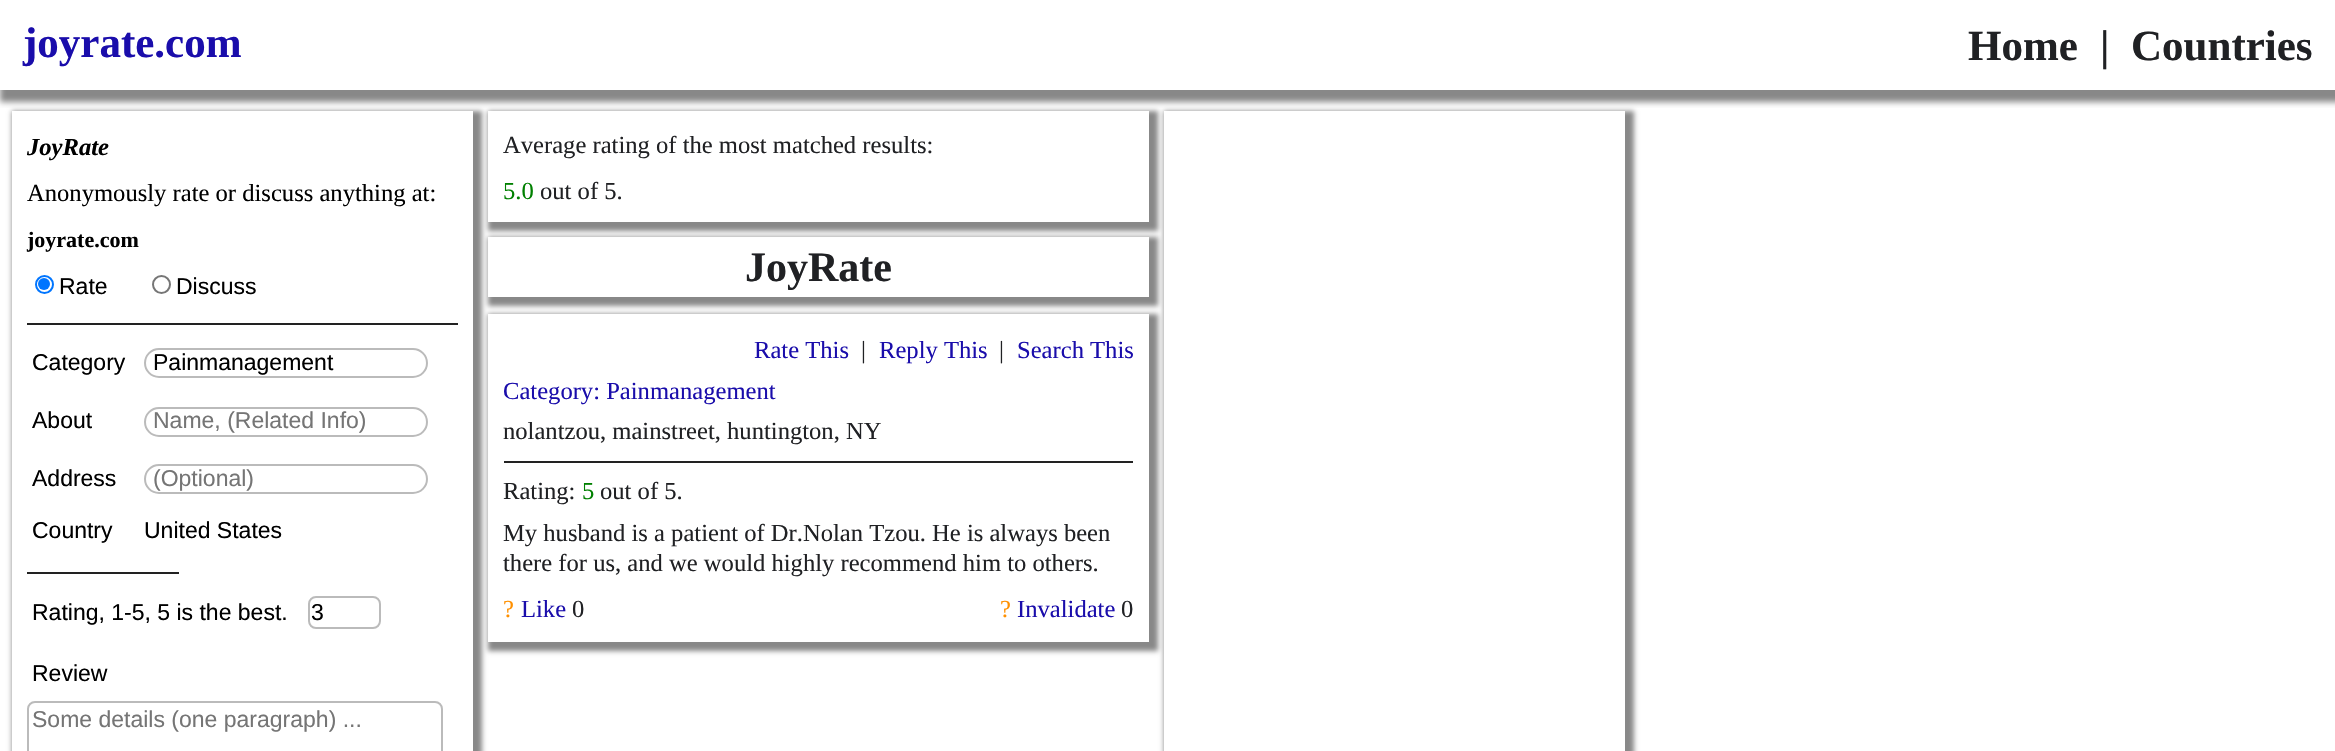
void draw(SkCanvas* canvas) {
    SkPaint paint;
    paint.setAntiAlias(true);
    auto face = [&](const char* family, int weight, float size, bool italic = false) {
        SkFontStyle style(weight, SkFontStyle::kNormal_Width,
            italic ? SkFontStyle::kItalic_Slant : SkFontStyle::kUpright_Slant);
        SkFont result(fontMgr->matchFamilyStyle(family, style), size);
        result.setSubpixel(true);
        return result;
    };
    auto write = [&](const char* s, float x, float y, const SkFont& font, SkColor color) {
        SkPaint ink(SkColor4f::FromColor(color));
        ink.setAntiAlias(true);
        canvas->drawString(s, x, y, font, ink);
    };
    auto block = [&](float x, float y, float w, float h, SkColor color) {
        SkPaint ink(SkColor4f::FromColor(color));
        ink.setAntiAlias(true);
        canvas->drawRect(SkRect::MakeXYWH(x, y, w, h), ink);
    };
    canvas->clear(SK_ColorWHITE);
    paint.setColor(SkColorSetRGB(136, 136, 136));
    paint.setMaskFilter(SkMaskFilter::MakeBlur(kNormal_SkBlurStyle, 2.5f));
    canvas->drawRect(SkRect::MakeXYWH(12, 111, 470, 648), paint);
    paint.setMaskFilter(nullptr);
    block(12, 111, 461, 640, SK_ColorWHITE);
    canvas->save();
    canvas->clipPath(SkPathBuilder(SkPathFillType::kEvenOdd).moveTo(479, 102).lineTo(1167, 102).lineTo(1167, 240).lineTo(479, 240).close().moveTo(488, 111).lineTo(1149, 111).lineTo(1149, 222).lineTo(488, 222).close().detach(), true);
    paint.setMaskFilter(SkMaskFilter::MakeBlur(kNormal_SkBlurStyle, 2.5f));
    canvas->drawRect(SkRect::MakeXYWH(488, 111, 670, 120), paint);
    paint.setMaskFilter(nullptr);
    canvas->restore();
    canvas->save();
    canvas->clipPath(SkPathBuilder(SkPathFillType::kEvenOdd).moveTo(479, 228).lineTo(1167, 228).lineTo(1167, 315).lineTo(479, 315).close().moveTo(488, 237).lineTo(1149, 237).lineTo(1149, 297).lineTo(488, 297).close().detach(), true);
    paint.setMaskFilter(SkMaskFilter::MakeBlur(kNormal_SkBlurStyle, 2.5f));
    canvas->drawRect(SkRect::MakeXYWH(488, 237, 670, 69), paint);
    paint.setMaskFilter(nullptr);
    canvas->restore();
    canvas->save();
    canvas->clipPath(SkPathBuilder(SkPathFillType::kEvenOdd).moveTo(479, 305).lineTo(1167, 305).lineTo(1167, 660).lineTo(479, 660).close().moveTo(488, 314).lineTo(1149, 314).lineTo(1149, 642).lineTo(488, 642).close().detach(), true);
    paint.setMaskFilter(SkMaskFilter::MakeBlur(kNormal_SkBlurStyle, 2.5f));
    canvas->drawRect(SkRect::MakeXYWH(488, 314, 670, 337), paint);
    paint.setMaskFilter(nullptr);
    canvas->restore();
    paint.setMaskFilter(SkMaskFilter::MakeBlur(kNormal_SkBlurStyle, 2.5f));
    canvas->drawRect(SkRect::MakeXYWH(1164, 111, 470, 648), paint);
    paint.setMaskFilter(nullptr);
    block(1164, 111, 461, 640, SK_ColorWHITE);
    canvas->save();
    canvas->clipRect(SkRect::MakeXYWH(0, 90, 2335, 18));
    paint.setMaskFilter(SkMaskFilter::MakeBlur(kNormal_SkBlurStyle, 3));
    canvas->drawRect(SkRect::MakeXYWH(0, 0, 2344, 102), paint);
    paint.setMaskFilter(nullptr);
    canvas->restore();
    auto kFont1 = face("Liberation Serif", 700, 43);
    write("joyrate.com", 23, 57, kFont1, SkColorSetRGB(26, 13, 171));
    write("Home", 1968, 60, kFont1, SkColorSetRGB(32, 33, 36));
    write("|", 2100, 60, kFont1, SkColorSetRGB(32, 33, 36));
    write("Countries", 2131, 60, kFont1, SkColorSetRGB(32, 33, 36));
    auto kFont2 = face("Liberation Serif", 700, 24.6f, true);
    write("JoyRate", 27, 155, kFont2, SK_ColorBLACK);
    auto kFont3 = face("Liberation Serif", 400, 24.6f);
    write("Anonymously rate or discuss anything at:", 27, 201, kFont3, SK_ColorBLACK);
    auto kFont4 = face("Liberation Serif", 700, 22);
    write("joyrate.com", 27, 247, kFont4, SK_ColorBLACK);
    paint.setStyle(SkPaint::kStroke_Style);
    paint.setStrokeWidth(2);
    paint.setColor(SkColorSetRGB(0, 117, 255));
    canvas->drawCircle(44.5f, 284.5f, 8.5f, paint);
    paint.setStyle(SkPaint::kFill_Style);
    canvas->drawCircle(44, 284, 6, paint);
    auto kFont5 = face("Liberation Sans", 400, 23);
    write("Rate", 59, 294, kFont5, SK_ColorBLACK);
    paint.setStyle(SkPaint::kStroke_Style);
    paint.setColor(SkColorSetRGB(118, 118, 118));
    canvas->drawCircle(161.5f, 284.5f, 8.5f, paint);
    write("Discuss", 176, 294, kFont5, SK_ColorBLACK);
    block(27, 323, 431, 2, SkColorSetRGB(34, 34, 34));
    write("Category", 32, 370, kFont5, SK_ColorBLACK);
    paint.setColor(SkColorSetRGB(187, 187, 187));
    canvas->drawRoundRect(SkRect::MakeXYWH(145, 349, 282, 28), 14, 14, paint);
    write("Painmanagement", 153, 370, kFont5, SK_ColorBLACK);
    write("About", 32, 428, kFont5, SK_ColorBLACK);
    canvas->drawRoundRect(SkRect::MakeXYWH(145, 408, 282, 28), 14, 14, paint);
    write("Name, (Related Info)", 153, 428, kFont5, SkColorSetRGB(117, 117, 117));
    write("Address", 32, 486, kFont5, SK_ColorBLACK);
    canvas->drawRoundRect(SkRect::MakeXYWH(145, 465, 282, 28), 14, 14, paint);
    write("(Optional)", 153, 486, kFont5, SkColorSetRGB(117, 117, 117));
    write("Country", 32, 538, kFont5, SK_ColorBLACK);
    write("United States", 144, 538, kFont5, SK_ColorBLACK);
    block(27, 572, 152, 2, SkColorSetRGB(34, 34, 34));
    write("Rating, 1-5, 5 is the best.", 32, 620, kFont5, SK_ColorBLACK);
    canvas->drawRoundRect(SkRect::MakeXYWH(309, 597, 71, 31), 7, 7, paint);
    write("3", 311, 620, kFont5, SK_ColorBLACK);
    write("Review", 32, 681, kFont5, SK_ColorBLACK);
    canvas->drawRoundRect(SkRect::MakeXYWH(28, 702, 414, 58), 7, 7, paint);
    write("Some details (one paragraph) ...", 32, 727, kFont5, SkColorSetRGB(117, 117, 117));
    write("Average rating of the most matched results:", 503, 153, kFont3, SkColorSetRGB(32, 33, 36));
    write("5.0", 503, 199, kFont3, SkColorSetRGB(0, 128, 0));
    write("out of 5.", 540, 199, kFont3, SkColorSetRGB(32, 33, 36));
    auto kFont6 = face("Liberation Serif", 700, 42);
    write("JoyRate", 745, 281, kFont6, SkColorSetRGB(32, 33, 36));
    write("Rate This", 754, 358, kFont3, SkColorSetRGB(26, 13, 171));
    write("|", 861, 358, kFont3, SkColorSetRGB(32, 33, 36));
    write("Reply This", 879, 358, kFont3, SkColorSetRGB(26, 13, 171));
    write("|", 999, 358, kFont3, SkColorSetRGB(32, 33, 36));
    write("Search This", 1017, 358, kFont3, SkColorSetRGB(26, 13, 171));
    write("Category: Painmanagement", 503, 399, kFont3, SkColorSetRGB(26, 13, 171));
    write("nolantzou, mainstreet, huntington, NY", 503, 439, kFont3, SkColorSetRGB(32, 33, 36));
    block(504, 461, 629, 2, SkColorSetRGB(34, 34, 34));
    write("Rating:", 503, 499, kFont3, SkColorSetRGB(32, 33, 36));
    write("5", 582, 499, kFont3, SkColorSetRGB(0, 128, 0));
    write("out of 5.", 600, 499, kFont3, SkColorSetRGB(32, 33, 36));
    write("My husband is a patient of Dr.Nolan Tzou. He is always been", 503, 541, kFont3, SkColorSetRGB(32, 33, 36));
    write("there for us, and we would highly recommend him to others.", 503, 571, kFont3, SkColorSetRGB(32, 33, 36));
    write("?", 503, 617, kFont3, SkColorSetRGB(255, 144, 0));
    write("Like", 521, 617, kFont3, SkColorSetRGB(26, 13, 171));
    write("0", 572, 617, kFont3, SkColorSetRGB(32, 33, 36));
    write("?", 1000, 617, kFont3, SkColorSetRGB(255, 144, 0));
    write("Invalidate", 1017, 617, kFont3, SkColorSetRGB(26, 13, 171));
    write("0", 1121, 617, kFont3, SkColorSetRGB(32, 33, 36));
}
